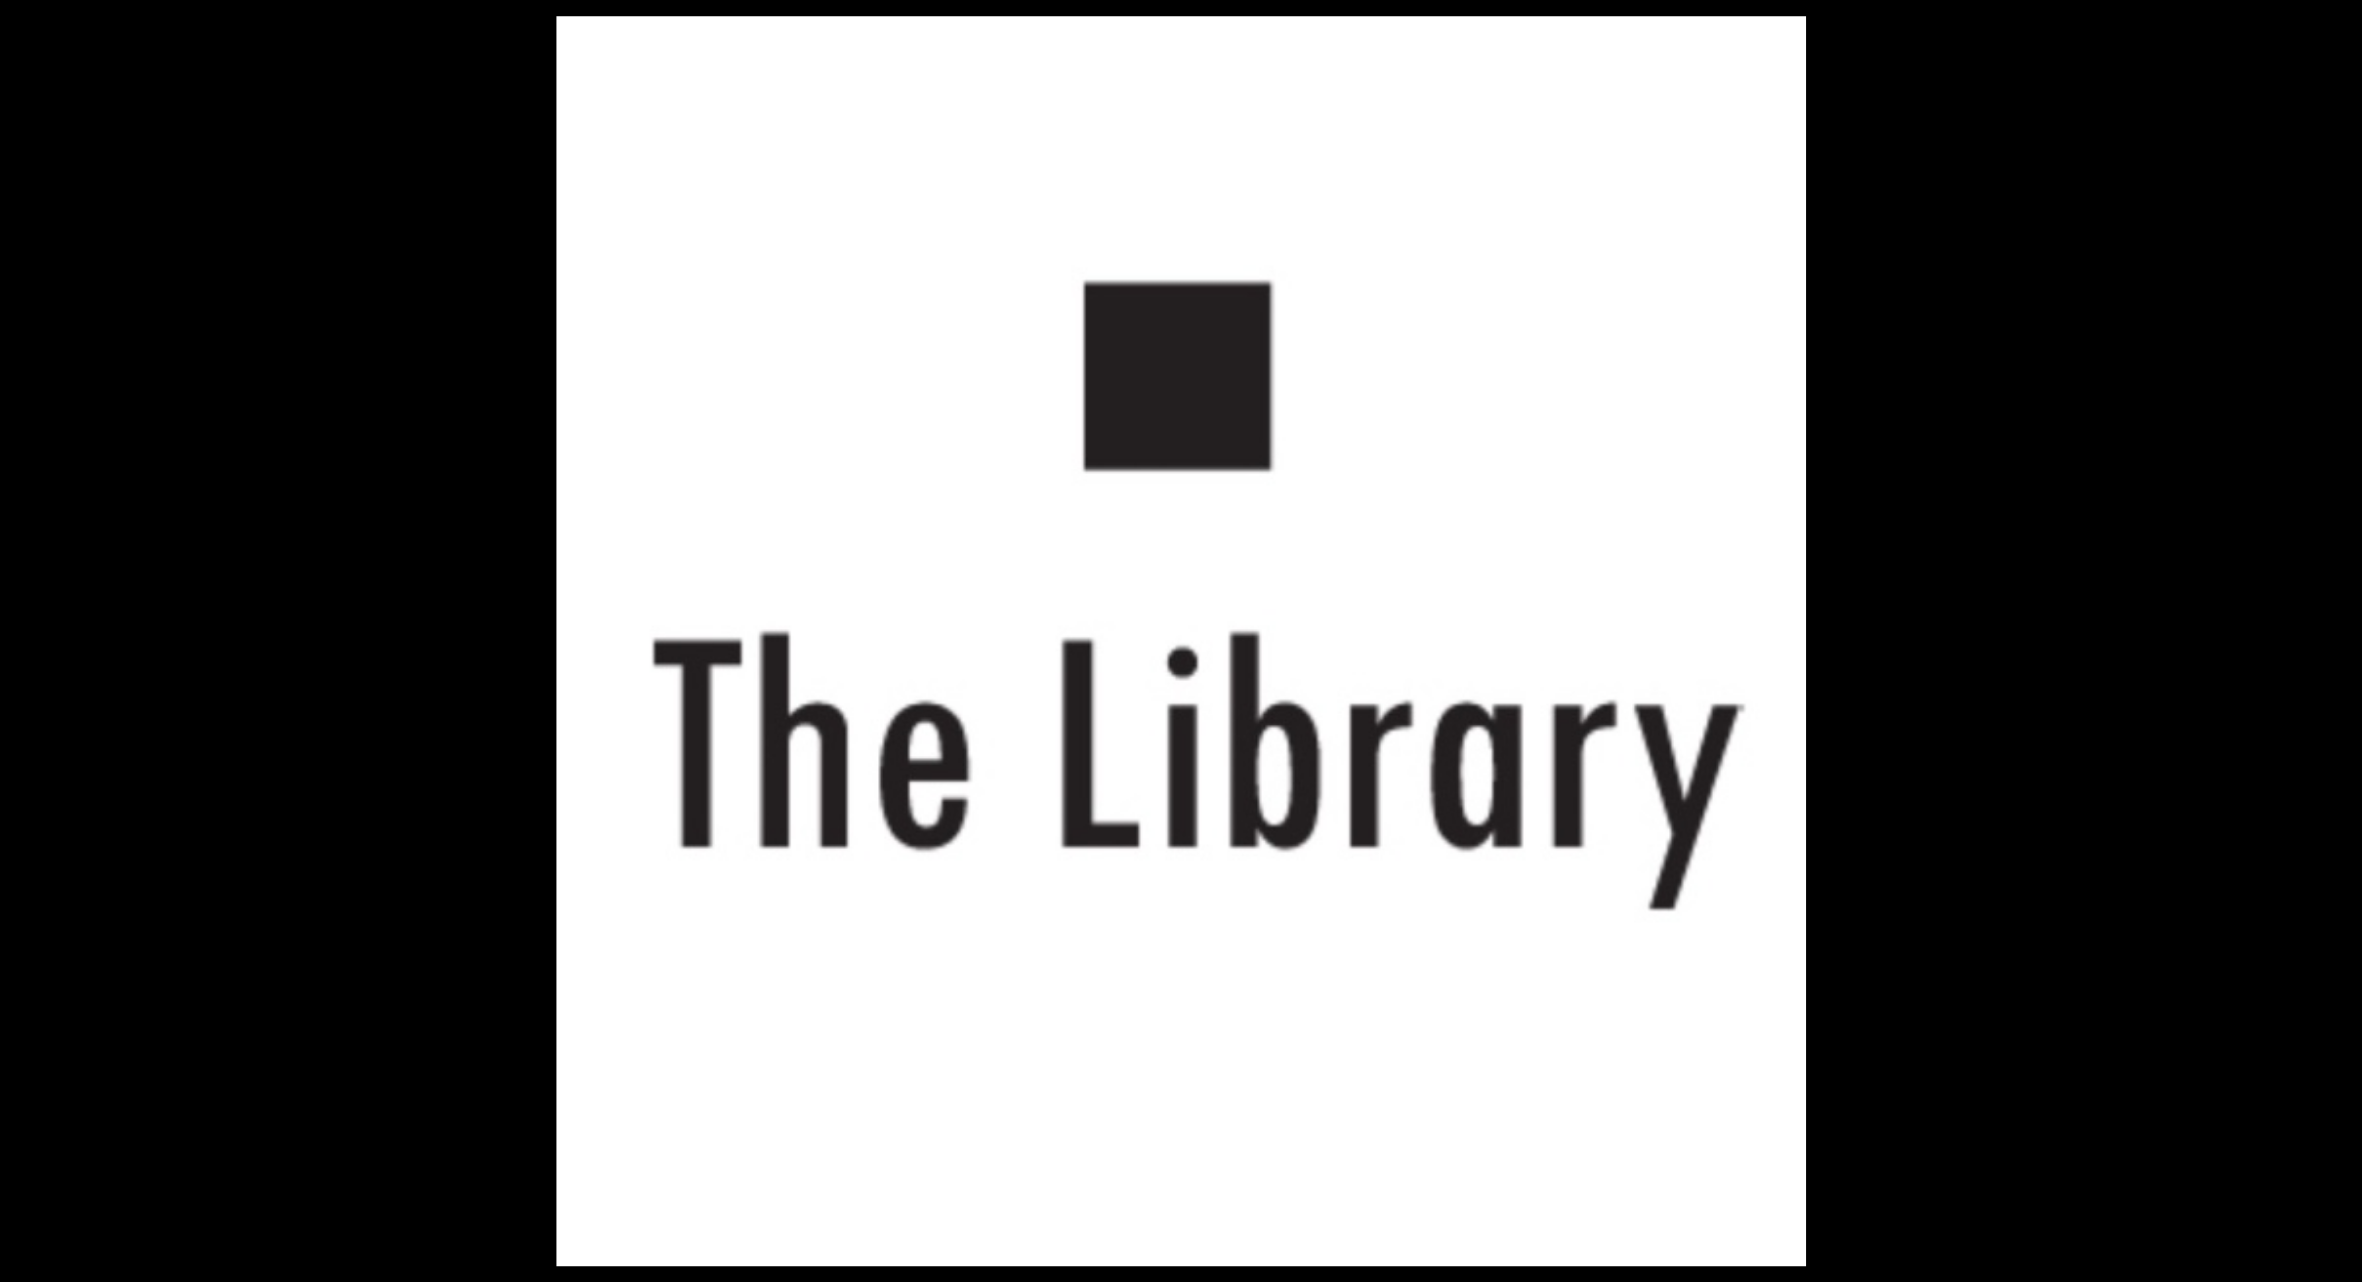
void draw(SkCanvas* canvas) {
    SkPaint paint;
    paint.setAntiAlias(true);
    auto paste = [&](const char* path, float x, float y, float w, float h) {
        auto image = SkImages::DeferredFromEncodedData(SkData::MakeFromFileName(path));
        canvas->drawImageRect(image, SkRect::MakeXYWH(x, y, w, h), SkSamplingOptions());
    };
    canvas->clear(SK_ColorBLACK);
    paste("pic1.png", 556, 16, 1251, 1251);
}
